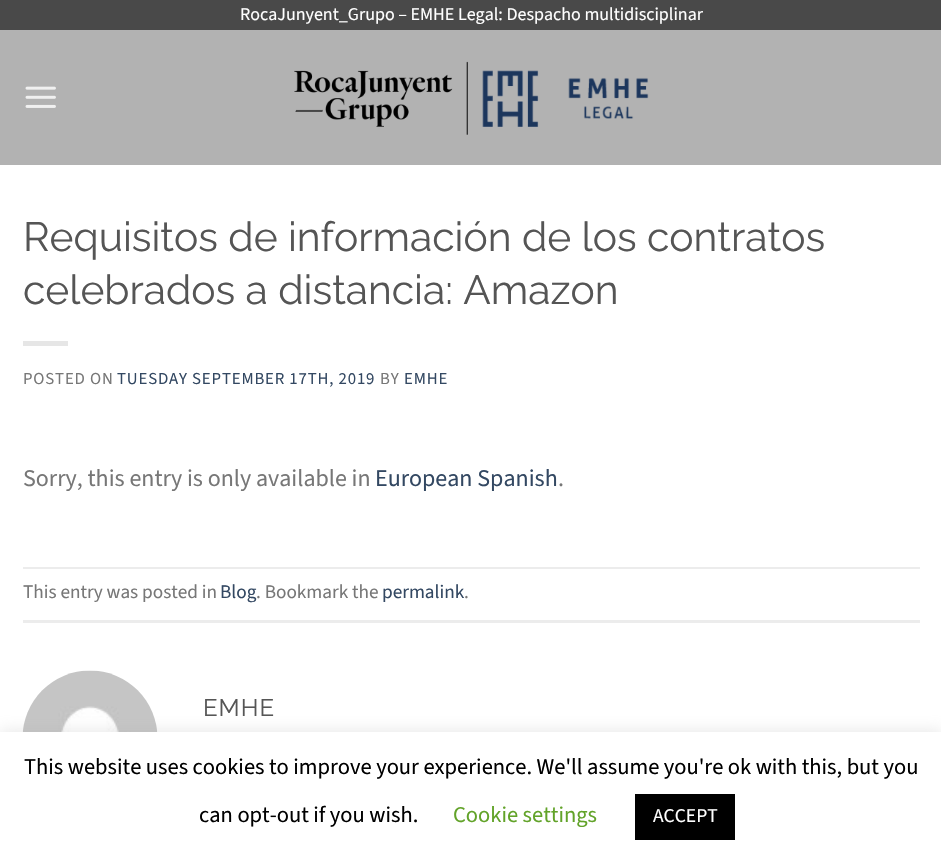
void draw(SkCanvas* canvas) {
    SkPaint paint;
    paint.setAntiAlias(true);
    auto face = [&](const char* family, int weight, float size, bool italic = false) {
        SkFontStyle style(weight, SkFontStyle::kNormal_Width,
            italic ? SkFontStyle::kItalic_Slant : SkFontStyle::kUpright_Slant);
        SkFont result(fontMgr->matchFamilyStyle(family, style), size);
        result.setSubpixel(true);
        return result;
    };
    auto write = [&](const char* s, float x, float y, const SkFont& font, SkColor color) {
        SkPaint ink(SkColor4f::FromColor(color));
        ink.setAntiAlias(true);
        canvas->drawString(s, x, y, font, ink);
    };
    auto writeSpaced = [&](const char* s, float x, float y, const SkFont& font, const SkPaint& ink, float letter, float word) {
        std::vector<SkGlyphID> glyphs(font.countText(s, strlen(s), SkTextEncoding::kUTF8));
        std::vector<float> xs(glyphs.size());
        font.textToGlyphs(s, strlen(s), SkTextEncoding::kUTF8, glyphs);
        font.getXPos(glyphs, xs, x);
        float extra = 0;
        for (size_t i = 0; i < glyphs.size(); i++) {
            xs[i] += extra;
            extra += letter + word * (glyphs[i] == font.unicharToGlyph(' '));
        }
        canvas->drawTextBlob(SkTextBlob::MakeFromPosHGlyphs(glyphs, xs, y, font), 0, 0, ink);
    };
    auto block = [&](float x, float y, float w, float h, SkColor color) {
        SkPaint ink(SkColor4f::FromColor(color));
        ink.setAntiAlias(true);
        canvas->drawRect(SkRect::MakeXYWH(x, y, w, h), ink);
    };
    auto paste = [&](const char* path, float x, float y, float w, float h) {
        auto image = SkImages::DeferredFromEncodedData(SkData::MakeFromFileName(path));
        canvas->drawImageRect(image, SkRect::MakeXYWH(x, y, w, h), SkSamplingOptions());
    };
    canvas->clear(SK_ColorWHITE);
    block(0, 0, 941, 30, SkColorSetRGB(73, 73, 73));
    auto kFont1 = face("Source Sans 3", 400, 18);
    write("RocaJunyent_Grupo – EMHE Legal: Despacho multidisciplinar", 240, 20, kFont1, SK_ColorWHITE);
    block(0, 30, 941, 135, SkColorSetRGB(178, 178, 178));
    paste("pic1.png", 25, 86, 31, 22);
    paste("pic2.png", 294, 61, 355, 74);
    auto kFont2 = face("Raleway", 400, 40.75f);
    write("Requisitos de información de los contratos", 23, 251, kFont2, SkColorSetRGB(85, 85, 85));
    write("celebrados a distancia: Amazon", 23, 304, kFont2, SkColorSetRGB(85, 85, 85));
    block(23, 341, 45, 5, SkColorSetRGB(230, 230, 230));
    auto kFont3 = face("Source Sans 3", 400, 16.75f);
    paint.setColor(SkColorSetRGB(119, 119, 119));
    writeSpaced("POSTED ON", 23, 384, kFont3, paint, 0.85f, 0);
    paint.setColor(SkColorSetRGB(51, 72, 98));
    writeSpaced("TUESDAY SEPTEMBER 17TH, 2019", 117, 384, kFont3, paint, 0.85f, 0);
    paint.setColor(SkColorSetRGB(119, 119, 119));
    writeSpaced("BY", 380, 384, kFont3, paint, 0.85f, 0);
    paint.setColor(SkColorSetRGB(51, 72, 98));
    writeSpaced("EMHE", 404, 384, kFont3, paint, 0.85f, 0);
    auto kFont4 = face("Source Sans 3", 400, 24);
    write("Sorry, this entry is only available in", 23, 486, kFont4, SkColorSetRGB(119, 119, 119));
    write("European Spanish", 375, 486, kFont4, SkColorSetRGB(51, 72, 98));
    write(".", 558, 486, kFont4, SkColorSetRGB(119, 119, 119));
    block(23, 567, 897, 2, SkColorSetRGB(236, 236, 236));
    block(23, 620, 897, 3, SkColorSetRGB(236, 236, 236));
    auto kFont5 = face("Source Sans 3", 400, 19.25f);
    write("This entry was posted in", 23, 598, kFont5, SkColorSetRGB(119, 119, 119));
    write("Blog", 220, 598, kFont5, SkColorSetRGB(51, 72, 98));
    write(". Bookmark the", 256, 598, kFont5, SkColorSetRGB(119, 119, 119));
    write("permalink", 382, 598, kFont5, SkColorSetRGB(51, 72, 98));
    write(".", 464, 598, kFont5, SkColorSetRGB(119, 119, 119));
    paste("pic3.png", 22, 670, 136, 62);
    auto kFont6 = face("Raleway", 400, 24);
    paint.setColor(SkColorSetRGB(85, 85, 85));
    writeSpaced("EMHE", 203, 716, kFont6, paint, 1, 0);
    paint.setColor(SkColorSetARGB(77, 172, 171, 171));
    paint.setMaskFilter(SkMaskFilter::MakeBlur(kNormal_SkBlurStyle, 7.5f));
    canvas->drawRect(SkRect::MakeXYWH(0, 731, 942, 133), paint);
    paint.setMaskFilter(nullptr);
    block(0, 732, 941, 133, SK_ColorWHITE);
    auto kFont7 = face("Source Sans 3", 400, 22.5f);
    write("This website uses cookies to improve your experience. We'll assume you're ok with this, but you", 24, 774, kFont7, SK_ColorBLACK);
    write("can opt-out if you wish.", 199, 822, kFont7, SK_ColorBLACK);
    write("Cookie settings", 453, 822, kFont7, SkColorSetRGB(98, 163, 41));
    block(635, 794, 100, 46, SK_ColorBLACK);
    auto kFont8 = face("Source Sans 3", 400, 19.5f);
    write("ACCEPT", 653, 822, kFont8, SK_ColorWHITE);
}
